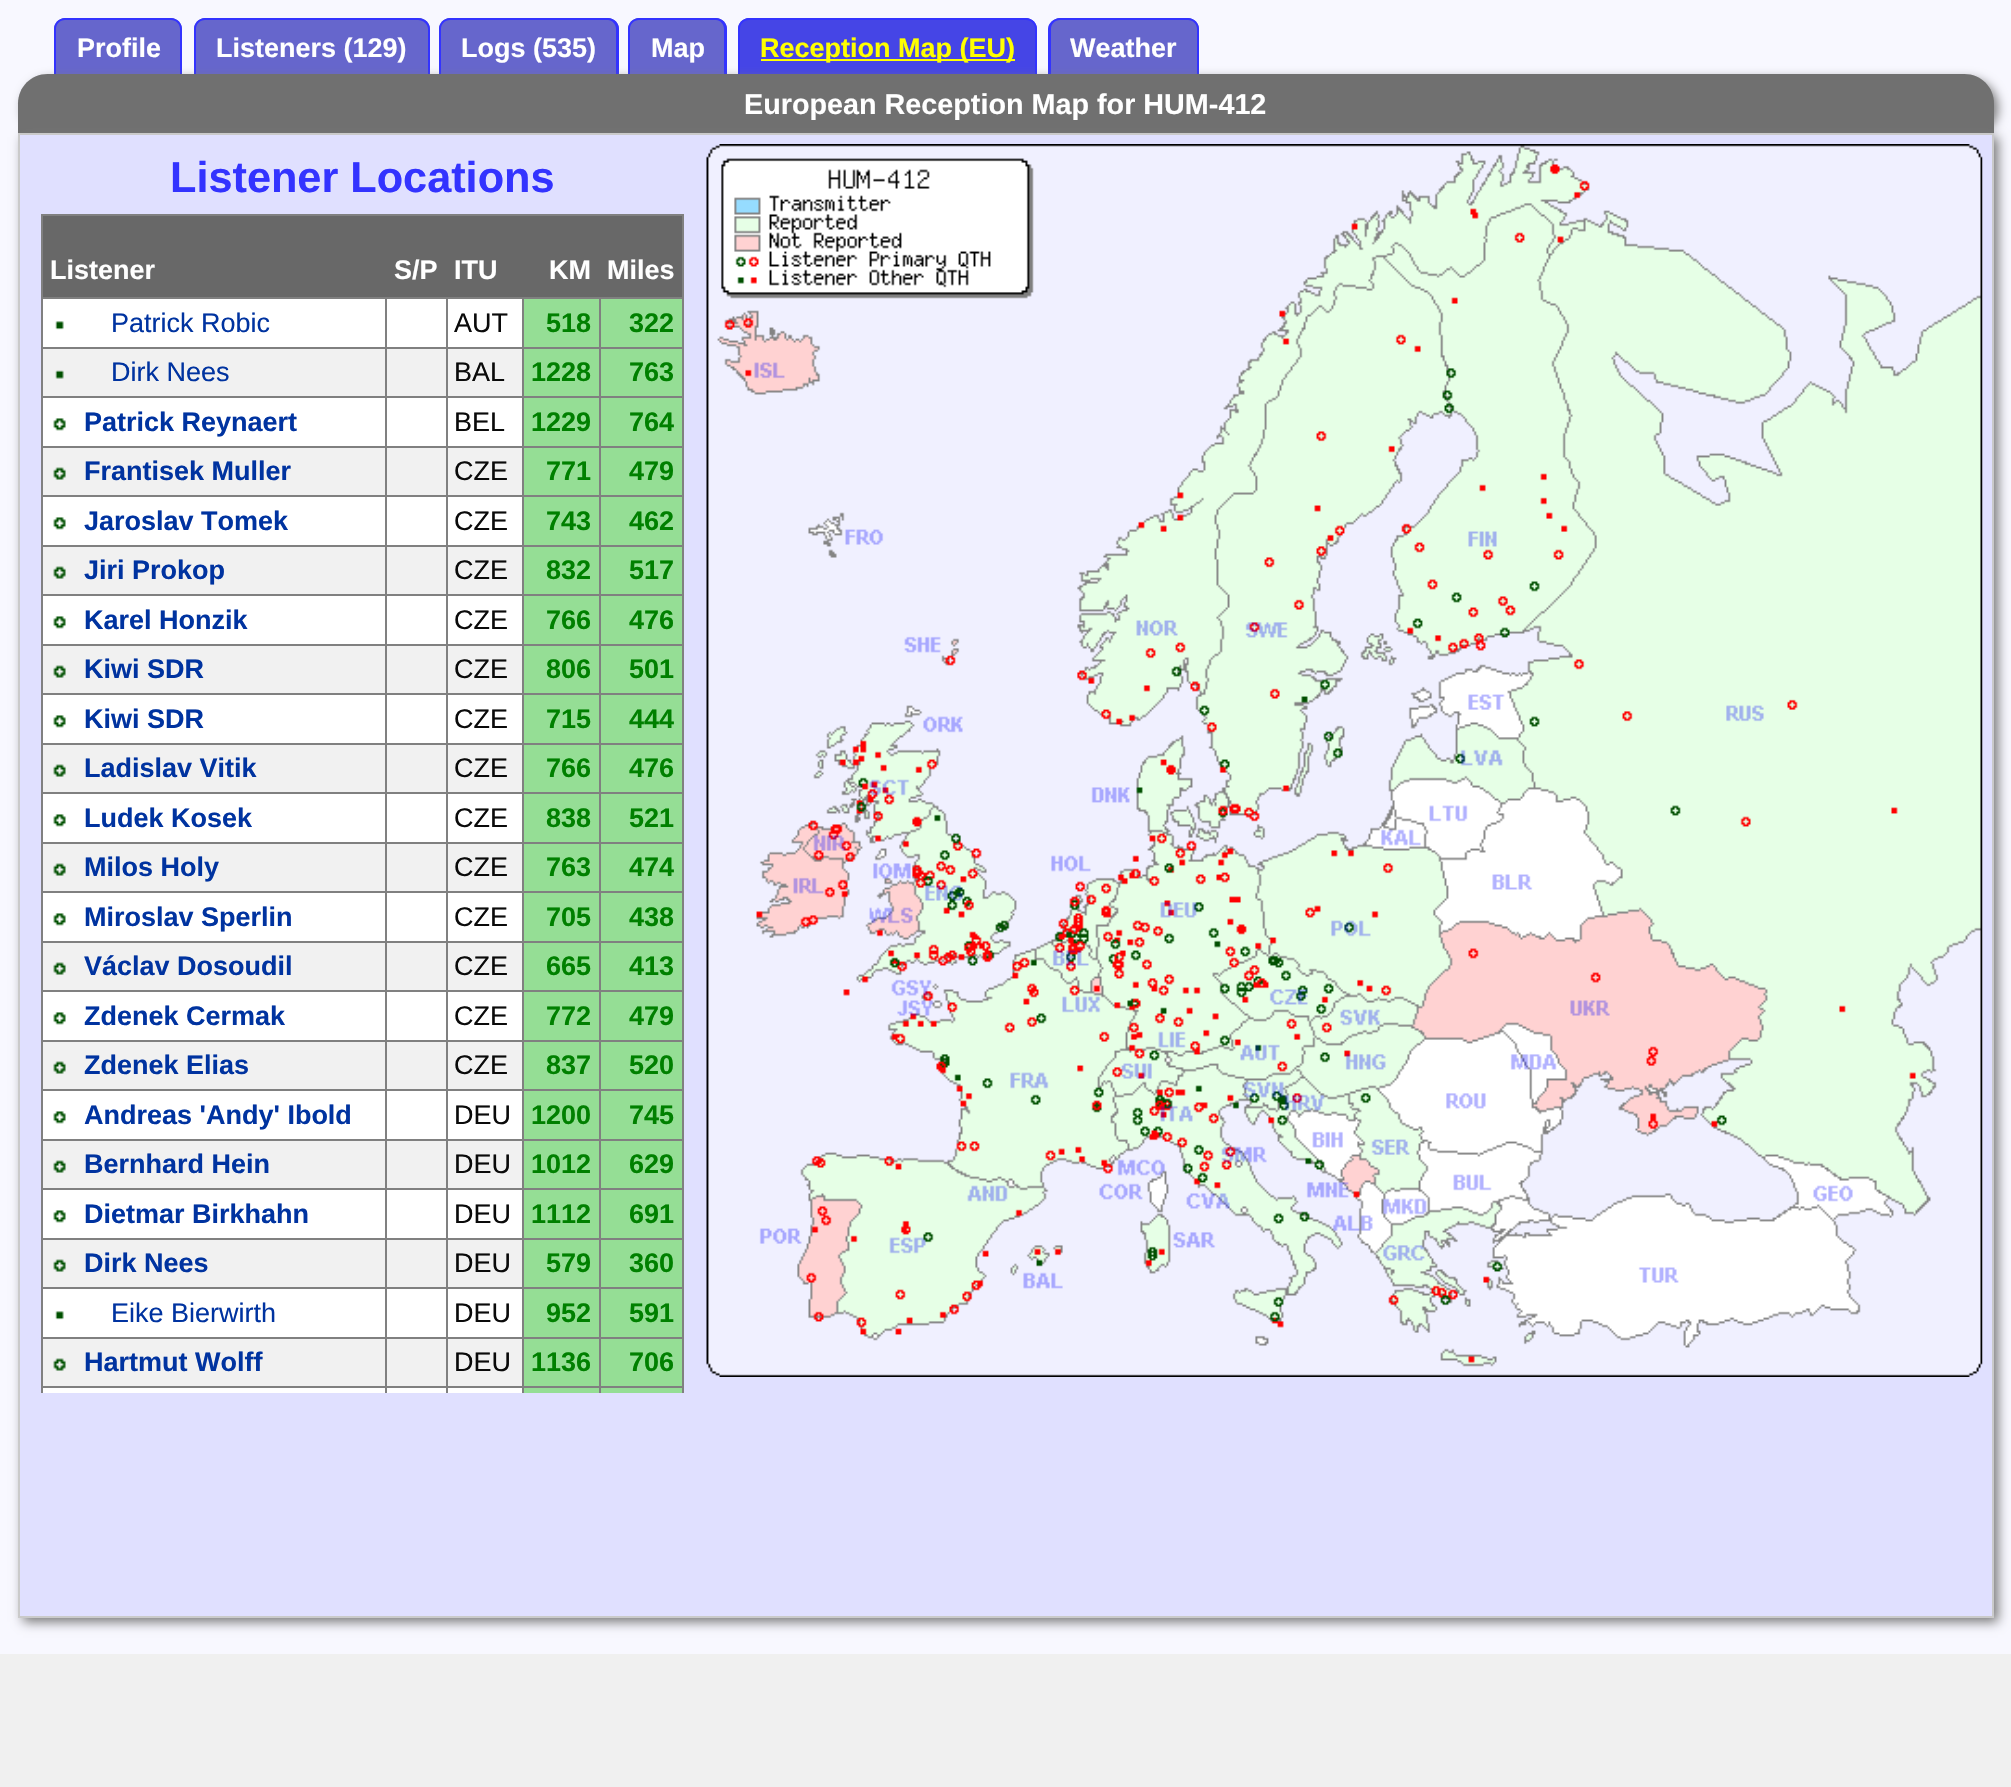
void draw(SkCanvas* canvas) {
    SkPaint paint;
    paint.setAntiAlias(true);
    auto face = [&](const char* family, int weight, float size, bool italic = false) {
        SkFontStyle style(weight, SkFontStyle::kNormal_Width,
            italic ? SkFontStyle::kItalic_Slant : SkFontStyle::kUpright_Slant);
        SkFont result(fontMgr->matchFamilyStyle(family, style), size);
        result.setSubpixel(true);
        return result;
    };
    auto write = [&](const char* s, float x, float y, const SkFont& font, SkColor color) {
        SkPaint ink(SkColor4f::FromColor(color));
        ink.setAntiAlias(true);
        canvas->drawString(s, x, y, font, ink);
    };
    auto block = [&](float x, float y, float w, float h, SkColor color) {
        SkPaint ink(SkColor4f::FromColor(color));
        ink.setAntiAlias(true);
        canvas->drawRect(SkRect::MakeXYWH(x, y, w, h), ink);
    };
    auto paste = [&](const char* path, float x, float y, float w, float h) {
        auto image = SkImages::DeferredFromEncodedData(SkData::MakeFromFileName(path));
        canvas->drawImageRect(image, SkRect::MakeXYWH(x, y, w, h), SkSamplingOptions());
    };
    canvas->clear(SkColorSetRGB(240, 240, 240));
    block(0, 0, 2011, 1654, SkColorSetRGB(248, 248, 255));
    paint.setColor(SkColorSetRGB(102, 102, 204));
    canvas->drawPath(SkPathBuilder().moveTo(65, 18).lineTo(171, 18).cubicTo(177, 18, 182, 23, 182, 29).lineTo(182, 74).lineTo(54, 74).lineTo(54, 29).cubicTo(54, 23, 59, 18, 65, 18).close().detach(), paint);
    paint.setColor(SkColorSetRGB(51, 51, 255));
    canvas->drawPath(SkPathBuilder(SkPathFillType::kEvenOdd).moveTo(65, 18).lineTo(171, 18).cubicTo(177, 18, 182, 23, 182, 29).lineTo(182, 74).lineTo(54, 74).lineTo(54, 29).cubicTo(54, 23, 59, 18, 65, 18).close().moveTo(65, 20).lineTo(171, 20).cubicTo(176, 20, 180, 24, 180, 29).lineTo(180, 74).lineTo(56, 74).lineTo(56, 29).cubicTo(56, 24, 60, 20, 65, 20).close().detach(), paint);
    auto kFont1 = face("Liberation Sans", 700, 27);
    write("Profile", 77, 57, kFont1, SK_ColorWHITE);
    paint.setColor(SkColorSetRGB(102, 102, 204));
    canvas->drawPath(SkPathBuilder().moveTo(205, 18).lineTo(419, 18).cubicTo(425, 18, 430, 23, 430, 29).lineTo(430, 74).lineTo(194, 74).lineTo(194, 29).cubicTo(194, 23, 199, 18, 205, 18).close().detach(), paint);
    paint.setColor(SkColorSetRGB(51, 51, 255));
    canvas->drawPath(SkPathBuilder(SkPathFillType::kEvenOdd).moveTo(205, 18).lineTo(418, 18).cubicTo(425, 18, 430, 23, 430, 29).lineTo(430, 74).lineTo(194, 74).lineTo(194, 29).cubicTo(194, 23, 199, 18, 205, 18).close().moveTo(205, 20).lineTo(418, 20).cubicTo(423, 20, 428, 24, 428, 29).lineTo(428, 74).lineTo(196, 74).lineTo(196, 29).cubicTo(196, 24, 200, 20, 205, 20).close().detach(), paint);
    write("Listeners (129)", 216, 57, kFont1, SK_ColorWHITE);
    paint.setColor(SkColorSetRGB(102, 102, 204));
    canvas->drawPath(SkPathBuilder().moveTo(450, 18).lineTo(608, 18).cubicTo(614, 18, 619, 23, 619, 29).lineTo(619, 74).lineTo(439, 74).lineTo(439, 29).cubicTo(439, 23, 444, 18, 450, 18).close().detach(), paint);
    paint.setColor(SkColorSetRGB(51, 51, 255));
    canvas->drawPath(SkPathBuilder(SkPathFillType::kEvenOdd).moveTo(450, 18).lineTo(608, 18).cubicTo(614, 18, 619, 23, 619, 29).lineTo(619, 74).lineTo(439, 74).lineTo(439, 29).cubicTo(439, 23, 444, 18, 450, 18).close().moveTo(450, 20).lineTo(608, 20).cubicTo(612, 20, 616, 24, 616, 29).lineTo(616, 74).lineTo(441, 74).lineTo(441, 29).cubicTo(441, 24, 445, 20, 450, 20).close().detach(), paint);
    write("Logs (535)", 461, 57, kFont1, SK_ColorWHITE);
    paint.setColor(SkColorSetRGB(102, 102, 204));
    canvas->drawPath(SkPathBuilder().moveTo(639, 18).lineTo(716, 18).cubicTo(722, 18, 727, 23, 727, 29).lineTo(727, 74).lineTo(628, 74).lineTo(628, 29).cubicTo(628, 23, 633, 18, 639, 18).close().detach(), paint);
    paint.setColor(SkColorSetRGB(51, 51, 255));
    canvas->drawPath(SkPathBuilder(SkPathFillType::kEvenOdd).moveTo(639, 18).lineTo(716, 18).cubicTo(722, 18, 727, 23, 727, 29).lineTo(727, 74).lineTo(628, 74).lineTo(628, 29).cubicTo(628, 23, 633, 18, 639, 18).close().moveTo(639, 20).lineTo(716, 20).cubicTo(720, 20, 724, 24, 724, 29).lineTo(724, 74).lineTo(630, 74).lineTo(630, 29).cubicTo(630, 24, 634, 20, 639, 20).close().detach(), paint);
    write("Map", 651, 57, kFont1, SK_ColorWHITE);
    paint.setColor(SkColorSetRGB(69, 69, 230));
    canvas->drawPath(SkPathBuilder().moveTo(749, 18).lineTo(1026, 18).cubicTo(1032, 18, 1037, 23, 1037, 29).lineTo(1037, 74).lineTo(738, 74).lineTo(738, 29).cubicTo(738, 23, 743, 18, 749, 18).close().detach(), paint);
    paint.setColor(SkColorSetRGB(51, 51, 255));
    canvas->drawPath(SkPathBuilder(SkPathFillType::kEvenOdd).moveTo(749, 18).lineTo(1026, 18).cubicTo(1032, 18, 1037, 23, 1037, 29).lineTo(1037, 74).lineTo(738, 74).lineTo(738, 29).cubicTo(738, 23, 743, 18, 749, 18).close().moveTo(749, 20).lineTo(1026, 20).cubicTo(1031, 20, 1035, 24, 1035, 29).lineTo(1035, 74).lineTo(740, 74).lineTo(740, 29).cubicTo(740, 24, 744, 20, 749, 20).close().detach(), paint);
    block(761, 59, 254, 2, SkColorSetRGB(255, 255, 0));
    write("Reception Map (EU)", 760, 57, kFont1, SkColorSetRGB(255, 255, 0));
    paint.setColor(SkColorSetRGB(102, 102, 204));
    canvas->drawPath(SkPathBuilder().moveTo(1060, 18).lineTo(1188, 18).cubicTo(1194, 18, 1199, 23, 1199, 29).lineTo(1199, 74).lineTo(1049, 74).lineTo(1049, 29).cubicTo(1049, 23, 1054, 18, 1060, 18).close().detach(), paint);
    paint.setColor(SkColorSetRGB(51, 51, 255));
    canvas->drawPath(SkPathBuilder(SkPathFillType::kEvenOdd).moveTo(1060, 18).lineTo(1188, 18).cubicTo(1194, 18, 1199, 23, 1199, 29).lineTo(1199, 74).lineTo(1048, 74).lineTo(1048, 29).cubicTo(1048, 23, 1054, 18, 1060, 18).close().moveTo(1060, 20).lineTo(1188, 20).cubicTo(1193, 20, 1197, 24, 1197, 29).lineTo(1197, 74).lineTo(1051, 74).lineTo(1051, 29).cubicTo(1051, 24, 1055, 20, 1060, 20).close().detach(), paint);
    write("Weather", 1070, 57, kFont1, SK_ColorWHITE);
    paint.setColor(SkColorSetRGB(119, 119, 119));
    paint.setMaskFilter(SkMaskFilter::MakeBlur(kNormal_SkBlurStyle, 5.5f));
    canvas->drawRoundRect(SkRect::MakeXYWH(23, 79, 1975, 58), 29, 29, paint);
    paint.setMaskFilter(nullptr);
    paint.setColor(SkColorSetRGB(112, 112, 112));
    canvas->drawPath(SkPathBuilder().moveTo(47.5f, 74).lineTo(1964.5f, 74).cubicTo(1981, 74, 1994, 87, 1994, 103.5f).lineTo(1994, 133).lineTo(18, 133).lineTo(18, 103.5f).cubicTo(18, 87, 31, 74, 47.5f, 74).close().detach(), paint);
    paint.setColor(SkColorSetRGB(119, 119, 119));
    paint.setMaskFilter(SkMaskFilter::MakeBlur(kNormal_SkBlurStyle, 5.5f));
    canvas->drawRect(SkRect::MakeXYWH(23, 137, 1975, 1485), paint);
    paint.setMaskFilter(nullptr);
    auto kFont2 = face("Liberation Sans", 700, 28.75f);
    write("European Reception Map for HUM-412", 744, 114, kFont2, SK_ColorWHITE);
    paint.setColor(SkColorSetRGB(224, 224, 255));
    canvas->drawRect(SkRect::MakeXYWH(19, 134, 1974, 1483), paint);
    paint.setStyle(SkPaint::kStroke_Style);
    paint.setStrokeWidth(2);
    paint.setColor(SkColorSetRGB(202, 202, 202));
    canvas->drawRect(SkRect::MakeXYWH(19, 134, 1974, 1483), paint);
    auto kFont3 = face("Liberation Sans", 700, 43.25f);
    write("Listener Locations", 170, 192, kFont3, SkColorSetRGB(51, 51, 255));
    block(43, 299, 479, 1094, SK_ColorWHITE);
    block(682, 214, 2, 1179, SkColorSetRGB(128, 128, 128));
    block(599, 297, 85, 2, SkColorSetRGB(128, 128, 128));
    block(599, 347, 85, 2, SkColorSetRGB(128, 128, 128));
    block(599, 396, 85, 2, SkColorSetRGB(128, 128, 128));
    block(599, 446, 85, 2, SkColorSetRGB(128, 128, 128));
    block(599, 495, 85, 2, SkColorSetRGB(128, 128, 128));
    block(599, 545, 85, 2, SkColorSetRGB(128, 128, 128));
    block(599, 594, 85, 2, SkColorSetRGB(128, 128, 128));
    block(599, 644, 85, 2, SkColorSetRGB(128, 128, 128));
    block(599, 693, 85, 2, SkColorSetRGB(128, 128, 128));
    block(599, 743, 85, 2, SkColorSetRGB(128, 128, 128));
    block(599, 792, 85, 2, SkColorSetRGB(128, 128, 128));
    block(599, 842, 85, 2, SkColorSetRGB(128, 128, 128));
    block(599, 891, 85, 2, SkColorSetRGB(128, 128, 128));
    block(599, 941, 85, 2, SkColorSetRGB(128, 128, 128));
    block(599, 990, 85, 2, SkColorSetRGB(128, 128, 128));
    block(599, 1040, 85, 2, SkColorSetRGB(128, 128, 128));
    block(599, 1089, 85, 2, SkColorSetRGB(128, 128, 128));
    block(599, 1139, 85, 2, SkColorSetRGB(128, 128, 128));
    block(599, 1188, 85, 2, SkColorSetRGB(128, 128, 128));
    block(599, 1238, 85, 2, SkColorSetRGB(128, 128, 128));
    block(599, 1287, 85, 2, SkColorSetRGB(128, 128, 128));
    block(599, 1337, 85, 2, SkColorSetRGB(128, 128, 128));
    block(599, 1386, 85, 2, SkColorSetRGB(128, 128, 128));
    block(522, 1388, 160, 5, SkColorSetRGB(149, 222, 149));
    block(599, 1386, 2, 7, SkColorSetRGB(128, 128, 128));
    block(522, 1386, 79, 2, SkColorSetRGB(128, 128, 128));
    block(599, 1337, 2, 51, SkColorSetRGB(128, 128, 128));
    block(522, 1337, 79, 2, SkColorSetRGB(128, 128, 128));
    block(599, 1287, 2, 52, SkColorSetRGB(128, 128, 128));
    block(522, 1287, 79, 2, SkColorSetRGB(128, 128, 128));
    block(599, 1238, 2, 51, SkColorSetRGB(128, 128, 128));
    block(522, 1238, 79, 2, SkColorSetRGB(128, 128, 128));
    block(599, 1188, 2, 52, SkColorSetRGB(128, 128, 128));
    block(522, 1188, 79, 2, SkColorSetRGB(128, 128, 128));
    block(599, 1139, 2, 51, SkColorSetRGB(128, 128, 128));
    block(522, 1139, 79, 2, SkColorSetRGB(128, 128, 128));
    block(599, 1089, 2, 52, SkColorSetRGB(128, 128, 128));
    block(522, 1089, 79, 2, SkColorSetRGB(128, 128, 128));
    block(599, 1040, 2, 51, SkColorSetRGB(128, 128, 128));
    block(522, 1040, 79, 2, SkColorSetRGB(128, 128, 128));
    block(599, 990, 2, 52, SkColorSetRGB(128, 128, 128));
    block(522, 990, 79, 2, SkColorSetRGB(128, 128, 128));
    block(599, 941, 2, 51, SkColorSetRGB(128, 128, 128));
    block(522, 941, 79, 2, SkColorSetRGB(128, 128, 128));
    block(599, 891, 2, 52, SkColorSetRGB(128, 128, 128));
    block(522, 891, 79, 2, SkColorSetRGB(128, 128, 128));
    block(599, 842, 2, 51, SkColorSetRGB(128, 128, 128));
    block(522, 842, 79, 2, SkColorSetRGB(128, 128, 128));
    block(599, 792, 2, 52, SkColorSetRGB(128, 128, 128));
    block(522, 792, 79, 2, SkColorSetRGB(128, 128, 128));
    block(599, 743, 2, 51, SkColorSetRGB(128, 128, 128));
    block(522, 743, 79, 2, SkColorSetRGB(128, 128, 128));
    block(599, 693, 2, 52, SkColorSetRGB(128, 128, 128));
    block(522, 693, 79, 2, SkColorSetRGB(128, 128, 128));
    block(599, 644, 2, 51, SkColorSetRGB(128, 128, 128));
    block(522, 644, 79, 2, SkColorSetRGB(128, 128, 128));
    block(599, 594, 2, 52, SkColorSetRGB(128, 128, 128));
    block(522, 594, 79, 2, SkColorSetRGB(128, 128, 128));
    block(599, 545, 2, 51, SkColorSetRGB(128, 128, 128));
    block(522, 545, 79, 2, SkColorSetRGB(128, 128, 128));
    block(599, 495, 2, 52, SkColorSetRGB(128, 128, 128));
    block(522, 495, 79, 2, SkColorSetRGB(128, 128, 128));
    block(599, 446, 2, 51, SkColorSetRGB(128, 128, 128));
    block(522, 446, 79, 2, SkColorSetRGB(128, 128, 128));
    block(599, 396, 2, 52, SkColorSetRGB(128, 128, 128));
    block(522, 396, 79, 2, SkColorSetRGB(128, 128, 128));
    block(599, 347, 2, 51, SkColorSetRGB(128, 128, 128));
    block(522, 347, 79, 2, SkColorSetRGB(128, 128, 128));
    block(599, 297, 2, 52, SkColorSetRGB(128, 128, 128));
    block(522, 297, 79, 2, SkColorSetRGB(128, 128, 128));
    block(522, 1386, 2, 7, SkColorSetRGB(128, 128, 128));
    block(446, 1386, 78, 2, SkColorSetRGB(128, 128, 128));
    block(522, 1337, 2, 51, SkColorSetRGB(128, 128, 128));
    block(446, 1337, 78, 2, SkColorSetRGB(128, 128, 128));
    block(522, 1287, 2, 52, SkColorSetRGB(128, 128, 128));
    block(446, 1287, 78, 2, SkColorSetRGB(128, 128, 128));
    block(522, 1238, 2, 51, SkColorSetRGB(128, 128, 128));
    block(446, 1238, 78, 2, SkColorSetRGB(128, 128, 128));
    block(522, 1188, 2, 52, SkColorSetRGB(128, 128, 128));
    block(446, 1188, 78, 2, SkColorSetRGB(128, 128, 128));
    block(522, 1139, 2, 51, SkColorSetRGB(128, 128, 128));
    block(446, 1139, 78, 2, SkColorSetRGB(128, 128, 128));
    block(522, 1089, 2, 52, SkColorSetRGB(128, 128, 128));
    block(446, 1089, 78, 2, SkColorSetRGB(128, 128, 128));
    block(522, 1040, 2, 51, SkColorSetRGB(128, 128, 128));
    block(446, 1040, 78, 2, SkColorSetRGB(128, 128, 128));
    block(522, 990, 2, 52, SkColorSetRGB(128, 128, 128));
    block(446, 990, 78, 2, SkColorSetRGB(128, 128, 128));
    block(522, 941, 2, 51, SkColorSetRGB(128, 128, 128));
    block(446, 941, 78, 2, SkColorSetRGB(128, 128, 128));
    block(522, 891, 2, 52, SkColorSetRGB(128, 128, 128));
    block(446, 891, 78, 2, SkColorSetRGB(128, 128, 128));
    block(522, 842, 2, 51, SkColorSetRGB(128, 128, 128));
    block(446, 842, 78, 2, SkColorSetRGB(128, 128, 128));
    block(522, 792, 2, 52, SkColorSetRGB(128, 128, 128));
    block(446, 792, 78, 2, SkColorSetRGB(128, 128, 128));
    block(522, 743, 2, 51, SkColorSetRGB(128, 128, 128));
    block(446, 743, 78, 2, SkColorSetRGB(128, 128, 128));
    block(522, 693, 2, 52, SkColorSetRGB(128, 128, 128));
    block(446, 693, 78, 2, SkColorSetRGB(128, 128, 128));
    block(522, 644, 2, 51, SkColorSetRGB(128, 128, 128));
    block(446, 644, 78, 2, SkColorSetRGB(128, 128, 128));
    block(522, 594, 2, 52, SkColorSetRGB(128, 128, 128));
    block(446, 594, 78, 2, SkColorSetRGB(128, 128, 128));
    block(522, 545, 2, 51, SkColorSetRGB(128, 128, 128));
    block(446, 545, 78, 2, SkColorSetRGB(128, 128, 128));
    block(522, 495, 2, 52, SkColorSetRGB(128, 128, 128));
    block(446, 495, 78, 2, SkColorSetRGB(128, 128, 128));
    block(522, 446, 2, 51, SkColorSetRGB(128, 128, 128));
    block(446, 446, 78, 2, SkColorSetRGB(128, 128, 128));
    block(522, 396, 2, 52, SkColorSetRGB(128, 128, 128));
    block(446, 396, 78, 2, SkColorSetRGB(128, 128, 128));
    block(522, 347, 2, 51, SkColorSetRGB(128, 128, 128));
    block(446, 347, 78, 2, SkColorSetRGB(128, 128, 128));
    block(522, 297, 2, 52, SkColorSetRGB(128, 128, 128));
    block(446, 297, 78, 2, SkColorSetRGB(128, 128, 128));
    block(43, 349, 479, 47, SkColorSetRGB(241, 241, 241));
    block(43, 448, 479, 47, SkColorSetRGB(241, 241, 241));
    block(43, 547, 479, 47, SkColorSetRGB(241, 241, 241));
    block(43, 646, 479, 47, SkColorSetRGB(241, 241, 241));
    block(43, 745, 479, 47, SkColorSetRGB(241, 241, 241));
    block(43, 844, 479, 47, SkColorSetRGB(241, 241, 241));
    block(43, 943, 479, 47, SkColorSetRGB(241, 241, 241));
    block(43, 1042, 479, 47, SkColorSetRGB(241, 241, 241));
    block(43, 1141, 479, 47, SkColorSetRGB(241, 241, 241));
    block(43, 1240, 479, 47, SkColorSetRGB(241, 241, 241));
    block(43, 1339, 479, 47, SkColorSetRGB(241, 241, 241));
    block(446, 1386, 2, 7, SkColorSetRGB(128, 128, 128));
    block(385, 1386, 63, 2, SkColorSetRGB(128, 128, 128));
    block(446, 1337, 2, 51, SkColorSetRGB(128, 128, 128));
    block(385, 1337, 63, 2, SkColorSetRGB(128, 128, 128));
    block(446, 1287, 2, 52, SkColorSetRGB(128, 128, 128));
    block(385, 1287, 63, 2, SkColorSetRGB(128, 128, 128));
    block(446, 1238, 2, 51, SkColorSetRGB(128, 128, 128));
    block(385, 1238, 63, 2, SkColorSetRGB(128, 128, 128));
    block(446, 1188, 2, 52, SkColorSetRGB(128, 128, 128));
    block(385, 1188, 63, 2, SkColorSetRGB(128, 128, 128));
    block(446, 1139, 2, 51, SkColorSetRGB(128, 128, 128));
    block(385, 1139, 63, 2, SkColorSetRGB(128, 128, 128));
    block(446, 1089, 2, 52, SkColorSetRGB(128, 128, 128));
    block(385, 1089, 63, 2, SkColorSetRGB(128, 128, 128));
    block(446, 1040, 2, 51, SkColorSetRGB(128, 128, 128));
    block(385, 1040, 63, 2, SkColorSetRGB(128, 128, 128));
    block(446, 990, 2, 52, SkColorSetRGB(128, 128, 128));
    block(385, 990, 63, 2, SkColorSetRGB(128, 128, 128));
    block(446, 941, 2, 51, SkColorSetRGB(128, 128, 128));
    block(385, 941, 63, 2, SkColorSetRGB(128, 128, 128));
    block(446, 891, 2, 52, SkColorSetRGB(128, 128, 128));
    block(385, 891, 63, 2, SkColorSetRGB(128, 128, 128));
    block(446, 842, 2, 51, SkColorSetRGB(128, 128, 128));
    block(385, 842, 63, 2, SkColorSetRGB(128, 128, 128));
    block(446, 792, 2, 52, SkColorSetRGB(128, 128, 128));
    block(385, 792, 63, 2, SkColorSetRGB(128, 128, 128));
    block(446, 743, 2, 51, SkColorSetRGB(128, 128, 128));
    block(385, 743, 63, 2, SkColorSetRGB(128, 128, 128));
    block(446, 693, 2, 52, SkColorSetRGB(128, 128, 128));
    block(385, 693, 63, 2, SkColorSetRGB(128, 128, 128));
    block(446, 644, 2, 51, SkColorSetRGB(128, 128, 128));
    block(385, 644, 63, 2, SkColorSetRGB(128, 128, 128));
    block(446, 594, 2, 52, SkColorSetRGB(128, 128, 128));
    block(385, 594, 63, 2, SkColorSetRGB(128, 128, 128));
    block(446, 545, 2, 51, SkColorSetRGB(128, 128, 128));
    block(385, 545, 63, 2, SkColorSetRGB(128, 128, 128));
    block(446, 495, 2, 52, SkColorSetRGB(128, 128, 128));
    block(385, 495, 63, 2, SkColorSetRGB(128, 128, 128));
    block(446, 446, 2, 51, SkColorSetRGB(128, 128, 128));
    block(385, 446, 63, 2, SkColorSetRGB(128, 128, 128));
    block(446, 396, 2, 52, SkColorSetRGB(128, 128, 128));
    block(385, 396, 63, 2, SkColorSetRGB(128, 128, 128));
    block(446, 347, 2, 51, SkColorSetRGB(128, 128, 128));
    block(385, 347, 63, 2, SkColorSetRGB(128, 128, 128));
    block(446, 297, 2, 52, SkColorSetRGB(128, 128, 128));
    block(385, 297, 63, 2, SkColorSetRGB(128, 128, 128));
    block(385, 1386, 2, 7, SkColorSetRGB(128, 128, 128));
    block(41, 1386, 346, 2, SkColorSetRGB(128, 128, 128));
    block(385, 1337, 2, 51, SkColorSetRGB(128, 128, 128));
    block(41, 1337, 346, 2, SkColorSetRGB(128, 128, 128));
    block(385, 1287, 2, 52, SkColorSetRGB(128, 128, 128));
    block(41, 1287, 346, 2, SkColorSetRGB(128, 128, 128));
    block(385, 1238, 2, 51, SkColorSetRGB(128, 128, 128));
    block(41, 1238, 346, 2, SkColorSetRGB(128, 128, 128));
    block(385, 1188, 2, 52, SkColorSetRGB(128, 128, 128));
    block(41, 1188, 346, 2, SkColorSetRGB(128, 128, 128));
    block(385, 1139, 2, 51, SkColorSetRGB(128, 128, 128));
    block(41, 1139, 346, 2, SkColorSetRGB(128, 128, 128));
    block(385, 1089, 2, 52, SkColorSetRGB(128, 128, 128));
    block(41, 1089, 346, 2, SkColorSetRGB(128, 128, 128));
    block(385, 1040, 2, 51, SkColorSetRGB(128, 128, 128));
    block(41, 1040, 346, 2, SkColorSetRGB(128, 128, 128));
    block(385, 990, 2, 52, SkColorSetRGB(128, 128, 128));
    block(41, 990, 346, 2, SkColorSetRGB(128, 128, 128));
    block(385, 941, 2, 51, SkColorSetRGB(128, 128, 128));
    block(41, 941, 346, 2, SkColorSetRGB(128, 128, 128));
    block(385, 891, 2, 52, SkColorSetRGB(128, 128, 128));
    block(41, 891, 346, 2, SkColorSetRGB(128, 128, 128));
    block(385, 842, 2, 51, SkColorSetRGB(128, 128, 128));
    block(41, 842, 346, 2, SkColorSetRGB(128, 128, 128));
    block(385, 792, 2, 52, SkColorSetRGB(128, 128, 128));
    block(41, 792, 346, 2, SkColorSetRGB(128, 128, 128));
    block(385, 743, 2, 51, SkColorSetRGB(128, 128, 128));
    block(41, 743, 346, 2, SkColorSetRGB(128, 128, 128));
    block(385, 693, 2, 52, SkColorSetRGB(128, 128, 128));
    block(41, 693, 346, 2, SkColorSetRGB(128, 128, 128));
    block(385, 644, 2, 51, SkColorSetRGB(128, 128, 128));
    block(41, 644, 346, 2, SkColorSetRGB(128, 128, 128));
    block(385, 594, 2, 52, SkColorSetRGB(128, 128, 128));
    block(41, 594, 346, 2, SkColorSetRGB(128, 128, 128));
    block(385, 545, 2, 51, SkColorSetRGB(128, 128, 128));
    block(41, 545, 346, 2, SkColorSetRGB(128, 128, 128));
    block(385, 495, 2, 52, SkColorSetRGB(128, 128, 128));
    block(41, 495, 346, 2, SkColorSetRGB(128, 128, 128));
    block(385, 446, 2, 51, SkColorSetRGB(128, 128, 128));
    block(41, 446, 346, 2, SkColorSetRGB(128, 128, 128));
    block(385, 396, 2, 52, SkColorSetRGB(128, 128, 128));
    block(41, 396, 346, 2, SkColorSetRGB(128, 128, 128));
    block(385, 347, 2, 51, SkColorSetRGB(128, 128, 128));
    block(41, 347, 346, 2, SkColorSetRGB(128, 128, 128));
    block(385, 297, 2, 52, SkColorSetRGB(128, 128, 128));
    block(41, 297, 346, 2, SkColorSetRGB(128, 128, 128));
    block(41, 1386, 2, 7, SkColorSetRGB(128, 128, 128));
    block(41, 1337, 2, 51, SkColorSetRGB(128, 128, 128));
    block(41, 1287, 2, 52, SkColorSetRGB(128, 128, 128));
    block(41, 1238, 2, 51, SkColorSetRGB(128, 128, 128));
    block(41, 1188, 2, 52, SkColorSetRGB(128, 128, 128));
    block(41, 1139, 2, 51, SkColorSetRGB(128, 128, 128));
    block(41, 1089, 2, 52, SkColorSetRGB(128, 128, 128));
    block(41, 1040, 2, 51, SkColorSetRGB(128, 128, 128));
    block(41, 990, 2, 52, SkColorSetRGB(128, 128, 128));
    block(41, 941, 2, 51, SkColorSetRGB(128, 128, 128));
    block(41, 891, 2, 52, SkColorSetRGB(128, 128, 128));
    block(41, 842, 2, 51, SkColorSetRGB(128, 128, 128));
    block(41, 792, 2, 52, SkColorSetRGB(128, 128, 128));
    block(41, 743, 2, 51, SkColorSetRGB(128, 128, 128));
    block(41, 693, 2, 52, SkColorSetRGB(128, 128, 128));
    block(41, 644, 2, 51, SkColorSetRGB(128, 128, 128));
    block(41, 594, 2, 52, SkColorSetRGB(128, 128, 128));
    block(41, 545, 2, 51, SkColorSetRGB(128, 128, 128));
    block(41, 495, 2, 52, SkColorSetRGB(128, 128, 128));
    block(41, 446, 2, 51, SkColorSetRGB(128, 128, 128));
    block(41, 396, 2, 52, SkColorSetRGB(128, 128, 128));
    block(41, 347, 2, 51, SkColorSetRGB(128, 128, 128));
    block(41, 216, 2, 133, SkColorSetRGB(128, 128, 128));
    block(41, 214, 643, 5, SkColorSetRGB(128, 128, 128));
    block(43, 216, 639, 81, SkColorSetRGB(104, 104, 104));
    write("Listener", 50, 279, kFont1, SK_ColorWHITE);
    write("S/P", 394, 279, kFont1, SK_ColorWHITE);
    write("ITU", 454, 279, kFont1, SK_ColorWHITE);
    write("KM", 549, 279, kFont1, SK_ColorWHITE);
    write("Miles", 607, 279, kFont1, SK_ColorWHITE);
    paste("pic1.png", 55, 321, 9, 9);
    auto kFont4 = face("Liberation Sans", 400, 27);
    write("Patrick Robic", 111, 332, kFont4, SkColorSetRGB(0, 51, 160));
    write("AUT", 454, 332, kFont4, SkColorSetRGB(10, 10, 10));
    block(524, 299, 75, 48, SkColorSetRGB(149, 222, 149));
    write("518", 546, 332, kFont1, SkColorSetRGB(0, 128, 0));
    block(601, 299, 81, 48, SkColorSetRGB(149, 222, 149));
    write("322", 629, 332, kFont1, SkColorSetRGB(0, 128, 0));
    paste("pic2.png", 55, 370, 9, 9);
    write("Dirk Nees", 111, 381, kFont4, SkColorSetRGB(0, 51, 160));
    write("BAL", 454, 381, kFont4, SkColorSetRGB(10, 10, 10));
    block(524, 349, 75, 47, SkColorSetRGB(149, 222, 149));
    write("1228", 531, 381, kFont1, SkColorSetRGB(0, 128, 0));
    block(601, 349, 81, 47, SkColorSetRGB(149, 222, 149));
    write("763", 629, 381, kFont1, SkColorSetRGB(0, 128, 0));
    paste("pic3.png", 53, 418, 13, 13);
    write("Patrick Reynaert", 84, 431, kFont1, SkColorSetRGB(0, 51, 160));
    write("BEL", 454, 431, kFont4, SkColorSetRGB(10, 10, 10));
    block(524, 398, 75, 48, SkColorSetRGB(149, 222, 149));
    write("1229", 531, 431, kFont1, SkColorSetRGB(0, 128, 0));
    block(601, 398, 81, 48, SkColorSetRGB(149, 222, 149));
    write("764", 629, 431, kFont1, SkColorSetRGB(0, 128, 0));
    paste("pic4.png", 53, 467, 13, 13);
    write("Frantisek Muller", 84, 480, kFont1, SkColorSetRGB(0, 51, 160));
    write("CZE", 454, 480, kFont4, SkColorSetRGB(10, 10, 10));
    block(524, 448, 75, 47, SkColorSetRGB(149, 222, 149));
    write("771", 546, 480, kFont1, SkColorSetRGB(0, 128, 0));
    block(601, 448, 81, 47, SkColorSetRGB(149, 222, 149));
    write("479", 629, 480, kFont1, SkColorSetRGB(0, 128, 0));
    paste("pic3.png", 53, 517, 13, 13);
    write("Jaroslav Tomek", 84, 530, kFont1, SkColorSetRGB(0, 51, 160));
    write("CZE", 454, 530, kFont4, SkColorSetRGB(10, 10, 10));
    block(524, 497, 75, 48, SkColorSetRGB(149, 222, 149));
    write("743", 546, 530, kFont1, SkColorSetRGB(0, 128, 0));
    block(601, 497, 81, 48, SkColorSetRGB(149, 222, 149));
    write("462", 629, 530, kFont1, SkColorSetRGB(0, 128, 0));
    paste("pic4.png", 53, 566, 13, 13);
    write("Jiri Prokop", 84, 579, kFont1, SkColorSetRGB(0, 51, 160));
    write("CZE", 454, 579, kFont4, SkColorSetRGB(10, 10, 10));
    block(524, 547, 75, 47, SkColorSetRGB(149, 222, 149));
    write("832", 546, 579, kFont1, SkColorSetRGB(0, 128, 0));
    block(601, 547, 81, 47, SkColorSetRGB(149, 222, 149));
    write("517", 629, 579, kFont1, SkColorSetRGB(0, 128, 0));
    paste("pic3.png", 53, 616, 13, 13);
    write("Karel Honzik", 84, 629, kFont1, SkColorSetRGB(0, 51, 160));
    write("CZE", 454, 629, kFont4, SkColorSetRGB(10, 10, 10));
    block(524, 596, 75, 48, SkColorSetRGB(149, 222, 149));
    write("766", 546, 629, kFont1, SkColorSetRGB(0, 128, 0));
    block(601, 596, 81, 48, SkColorSetRGB(149, 222, 149));
    write("476", 629, 629, kFont1, SkColorSetRGB(0, 128, 0));
    paste("pic4.png", 53, 665, 13, 13);
    write("Kiwi SDR", 84, 678, kFont1, SkColorSetRGB(0, 51, 160));
    write("CZE", 454, 678, kFont4, SkColorSetRGB(10, 10, 10));
    block(524, 646, 75, 47, SkColorSetRGB(149, 222, 149));
    write("806", 546, 678, kFont1, SkColorSetRGB(0, 128, 0));
    block(601, 646, 81, 47, SkColorSetRGB(149, 222, 149));
    write("501", 629, 678, kFont1, SkColorSetRGB(0, 128, 0));
    paste("pic3.png", 53, 715, 13, 13);
    write("Kiwi SDR", 84, 728, kFont1, SkColorSetRGB(0, 51, 160));
    write("CZE", 454, 728, kFont4, SkColorSetRGB(10, 10, 10));
    block(524, 695, 75, 48, SkColorSetRGB(149, 222, 149));
    write("715", 546, 728, kFont1, SkColorSetRGB(0, 128, 0));
    block(601, 695, 81, 48, SkColorSetRGB(149, 222, 149));
    write("444", 629, 728, kFont1, SkColorSetRGB(0, 128, 0));
    paste("pic4.png", 53, 764, 13, 13);
    write("Ladislav Vitik", 84, 777, kFont1, SkColorSetRGB(0, 51, 160));
    write("CZE", 454, 777, kFont4, SkColorSetRGB(10, 10, 10));
    block(524, 745, 75, 47, SkColorSetRGB(149, 222, 149));
    write("766", 546, 777, kFont1, SkColorSetRGB(0, 128, 0));
    block(601, 745, 81, 47, SkColorSetRGB(149, 222, 149));
    write("476", 629, 777, kFont1, SkColorSetRGB(0, 128, 0));
    paste("pic3.png", 53, 814, 13, 13);
    write("Ludek Kosek", 84, 827, kFont1, SkColorSetRGB(0, 51, 160));
    write("CZE", 454, 827, kFont4, SkColorSetRGB(10, 10, 10));
    block(524, 794, 75, 48, SkColorSetRGB(149, 222, 149));
    write("838", 546, 827, kFont1, SkColorSetRGB(0, 128, 0));
    block(601, 794, 81, 48, SkColorSetRGB(149, 222, 149));
    write("521", 629, 827, kFont1, SkColorSetRGB(0, 128, 0));
    paste("pic4.png", 53, 863, 13, 13);
    write("Milos Holy", 84, 876, kFont1, SkColorSetRGB(0, 51, 160));
    write("CZE", 454, 876, kFont4, SkColorSetRGB(10, 10, 10));
    block(524, 844, 75, 47, SkColorSetRGB(149, 222, 149));
    write("763", 546, 876, kFont1, SkColorSetRGB(0, 128, 0));
    block(601, 844, 81, 47, SkColorSetRGB(149, 222, 149));
    write("474", 629, 876, kFont1, SkColorSetRGB(0, 128, 0));
    paste("pic3.png", 53, 913, 13, 13);
    write("Miroslav Sperlin", 84, 926, kFont1, SkColorSetRGB(0, 51, 160));
    write("CZE", 454, 926, kFont4, SkColorSetRGB(10, 10, 10));
    block(524, 893, 75, 48, SkColorSetRGB(149, 222, 149));
    write("705", 546, 926, kFont1, SkColorSetRGB(0, 128, 0));
    block(601, 893, 81, 48, SkColorSetRGB(149, 222, 149));
    write("438", 629, 926, kFont1, SkColorSetRGB(0, 128, 0));
    paste("pic4.png", 53, 962, 13, 13);
    write("Václav Dosoudil", 84, 975, kFont1, SkColorSetRGB(0, 51, 160));
    write("CZE", 454, 975, kFont4, SkColorSetRGB(10, 10, 10));
    block(524, 943, 75, 47, SkColorSetRGB(149, 222, 149));
    write("665", 546, 975, kFont1, SkColorSetRGB(0, 128, 0));
    block(601, 943, 81, 47, SkColorSetRGB(149, 222, 149));
    write("413", 629, 975, kFont1, SkColorSetRGB(0, 128, 0));
    paste("pic3.png", 53, 1012, 13, 13);
    write("Zdenek Cermak", 84, 1025, kFont1, SkColorSetRGB(0, 51, 160));
    write("CZE", 454, 1025, kFont4, SkColorSetRGB(10, 10, 10));
    block(524, 992, 75, 48, SkColorSetRGB(149, 222, 149));
    write("772", 546, 1025, kFont1, SkColorSetRGB(0, 128, 0));
    block(601, 992, 81, 48, SkColorSetRGB(149, 222, 149));
    write("479", 629, 1025, kFont1, SkColorSetRGB(0, 128, 0));
    paste("pic4.png", 53, 1061, 13, 13);
    write("Zdenek Elias", 84, 1074, kFont1, SkColorSetRGB(0, 51, 160));
    write("CZE", 454, 1074, kFont4, SkColorSetRGB(10, 10, 10));
    block(524, 1042, 75, 47, SkColorSetRGB(149, 222, 149));
    write("837", 546, 1074, kFont1, SkColorSetRGB(0, 128, 0));
    block(601, 1042, 81, 47, SkColorSetRGB(149, 222, 149));
    write("520", 629, 1074, kFont1, SkColorSetRGB(0, 128, 0));
    paste("pic3.png", 53, 1111, 13, 13);
    write("Andreas 'Andy' Ibold", 84, 1124, kFont1, SkColorSetRGB(0, 51, 160));
    write("DEU", 454, 1124, kFont4, SkColorSetRGB(10, 10, 10));
    block(524, 1091, 75, 48, SkColorSetRGB(149, 222, 149));
    write("1200", 531, 1124, kFont1, SkColorSetRGB(0, 128, 0));
    block(601, 1091, 81, 48, SkColorSetRGB(149, 222, 149));
    write("745", 629, 1124, kFont1, SkColorSetRGB(0, 128, 0));
    paste("pic5.png", 53, 1160, 13, 13);
    write("Bernhard Hein", 84, 1173, kFont1, SkColorSetRGB(0, 51, 160));
    write("DEU", 454, 1173, kFont4, SkColorSetRGB(10, 10, 10));
    block(524, 1141, 75, 47, SkColorSetRGB(149, 222, 149));
    write("1012", 531, 1173, kFont1, SkColorSetRGB(0, 128, 0));
    block(601, 1141, 81, 47, SkColorSetRGB(149, 222, 149));
    write("629", 629, 1173, kFont1, SkColorSetRGB(0, 128, 0));
    paste("pic3.png", 53, 1210, 13, 13);
    write("Dietmar Birkhahn", 84, 1223, kFont1, SkColorSetRGB(0, 51, 160));
    write("DEU", 454, 1223, kFont4, SkColorSetRGB(10, 10, 10));
    block(524, 1190, 75, 48, SkColorSetRGB(149, 222, 149));
    write("1112", 531, 1223, kFont1, SkColorSetRGB(0, 128, 0));
    block(601, 1190, 81, 48, SkColorSetRGB(149, 222, 149));
    write("691", 629, 1223, kFont1, SkColorSetRGB(0, 128, 0));
    paste("pic4.png", 53, 1259, 13, 13);
    write("Dirk Nees", 84, 1272, kFont1, SkColorSetRGB(0, 51, 160));
    write("DEU", 454, 1272, kFont4, SkColorSetRGB(10, 10, 10));
    block(524, 1240, 75, 47, SkColorSetRGB(149, 222, 149));
    write("579", 546, 1272, kFont1, SkColorSetRGB(0, 128, 0));
    block(601, 1240, 81, 47, SkColorSetRGB(149, 222, 149));
    write("360", 629, 1272, kFont1, SkColorSetRGB(0, 128, 0));
    paste("pic1.png", 55, 1311, 9, 9);
    write("Eike Bierwirth", 111, 1322, kFont4, SkColorSetRGB(0, 51, 160));
    write("DEU", 454, 1322, kFont4, SkColorSetRGB(10, 10, 10));
    block(524, 1289, 75, 48, SkColorSetRGB(149, 222, 149));
    write("952", 546, 1322, kFont1, SkColorSetRGB(0, 128, 0));
    block(601, 1289, 81, 48, SkColorSetRGB(149, 222, 149));
    write("591", 629, 1322, kFont1, SkColorSetRGB(0, 128, 0));
    paste("pic4.png", 53, 1358, 13, 13);
    write("Hartmut Wolff", 84, 1371, kFont1, SkColorSetRGB(0, 51, 160));
    write("DEU", 454, 1371, kFont4, SkColorSetRGB(10, 10, 10));
    block(524, 1339, 75, 47, SkColorSetRGB(149, 222, 149));
    write("1136", 531, 1371, kFont1, SkColorSetRGB(0, 128, 0));
    block(601, 1339, 81, 47, SkColorSetRGB(149, 222, 149));
    write("706", 629, 1371, kFont1, SkColorSetRGB(0, 128, 0));
    paste("pic6.png", 706, 144, 1277, 1233);
}
